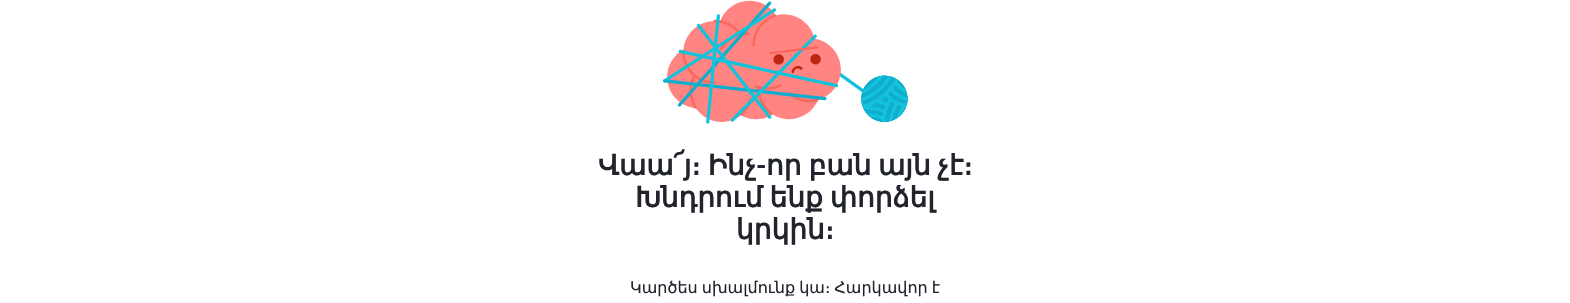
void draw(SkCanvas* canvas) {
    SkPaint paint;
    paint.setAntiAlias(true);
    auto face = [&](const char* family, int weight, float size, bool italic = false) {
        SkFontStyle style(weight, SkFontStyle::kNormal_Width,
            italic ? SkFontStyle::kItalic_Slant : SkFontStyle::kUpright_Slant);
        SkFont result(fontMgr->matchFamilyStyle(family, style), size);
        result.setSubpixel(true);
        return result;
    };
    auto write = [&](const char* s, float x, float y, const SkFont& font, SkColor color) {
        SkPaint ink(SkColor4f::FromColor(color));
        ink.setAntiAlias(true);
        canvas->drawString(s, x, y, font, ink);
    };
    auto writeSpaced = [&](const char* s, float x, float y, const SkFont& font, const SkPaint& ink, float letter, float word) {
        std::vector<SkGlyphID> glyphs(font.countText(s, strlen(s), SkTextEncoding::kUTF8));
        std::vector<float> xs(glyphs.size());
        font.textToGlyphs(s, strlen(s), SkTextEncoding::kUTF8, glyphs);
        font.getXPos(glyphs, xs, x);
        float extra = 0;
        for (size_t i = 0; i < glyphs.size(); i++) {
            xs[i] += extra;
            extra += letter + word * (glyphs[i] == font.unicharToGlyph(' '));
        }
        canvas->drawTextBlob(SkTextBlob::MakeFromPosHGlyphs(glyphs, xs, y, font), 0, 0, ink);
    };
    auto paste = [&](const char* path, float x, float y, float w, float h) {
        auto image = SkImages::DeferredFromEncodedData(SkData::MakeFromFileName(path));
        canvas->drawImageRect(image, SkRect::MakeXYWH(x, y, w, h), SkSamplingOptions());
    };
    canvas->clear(SK_ColorWHITE);
    paste("pic1.png", 663, 0, 245, 124);
    auto kFont1 = face("DejaVu Sans", 700, 28);
    paint.setColor(SkColorSetRGB(33, 36, 44));
    writeSpaced("Վաա՜յ։ Ինչ", 598, 175, kFont1, paint, 0, -2);
    auto kFont2 = face("Lato", 700, 28);
    write("-", 756, 175, kFont2, SkColorSetRGB(33, 36, 44));
    writeSpaced("որ բան այն չէ։", 766, 175, kFont1, paint, 0, -2);
    writeSpaced("Խնդրում ենք փորձել", 635, 207, kFont1, paint, 0, -2);
    write("կրկին։", 736, 239, kFont1, SkColorSetRGB(33, 36, 44));
    auto kFont3 = face("DejaVu Sans", 400, 16);
    writeSpaced("Կարծես սխալմունք կա։ Հարկավոր է", 630, 293, kFont3, paint, 0, -1);
}
